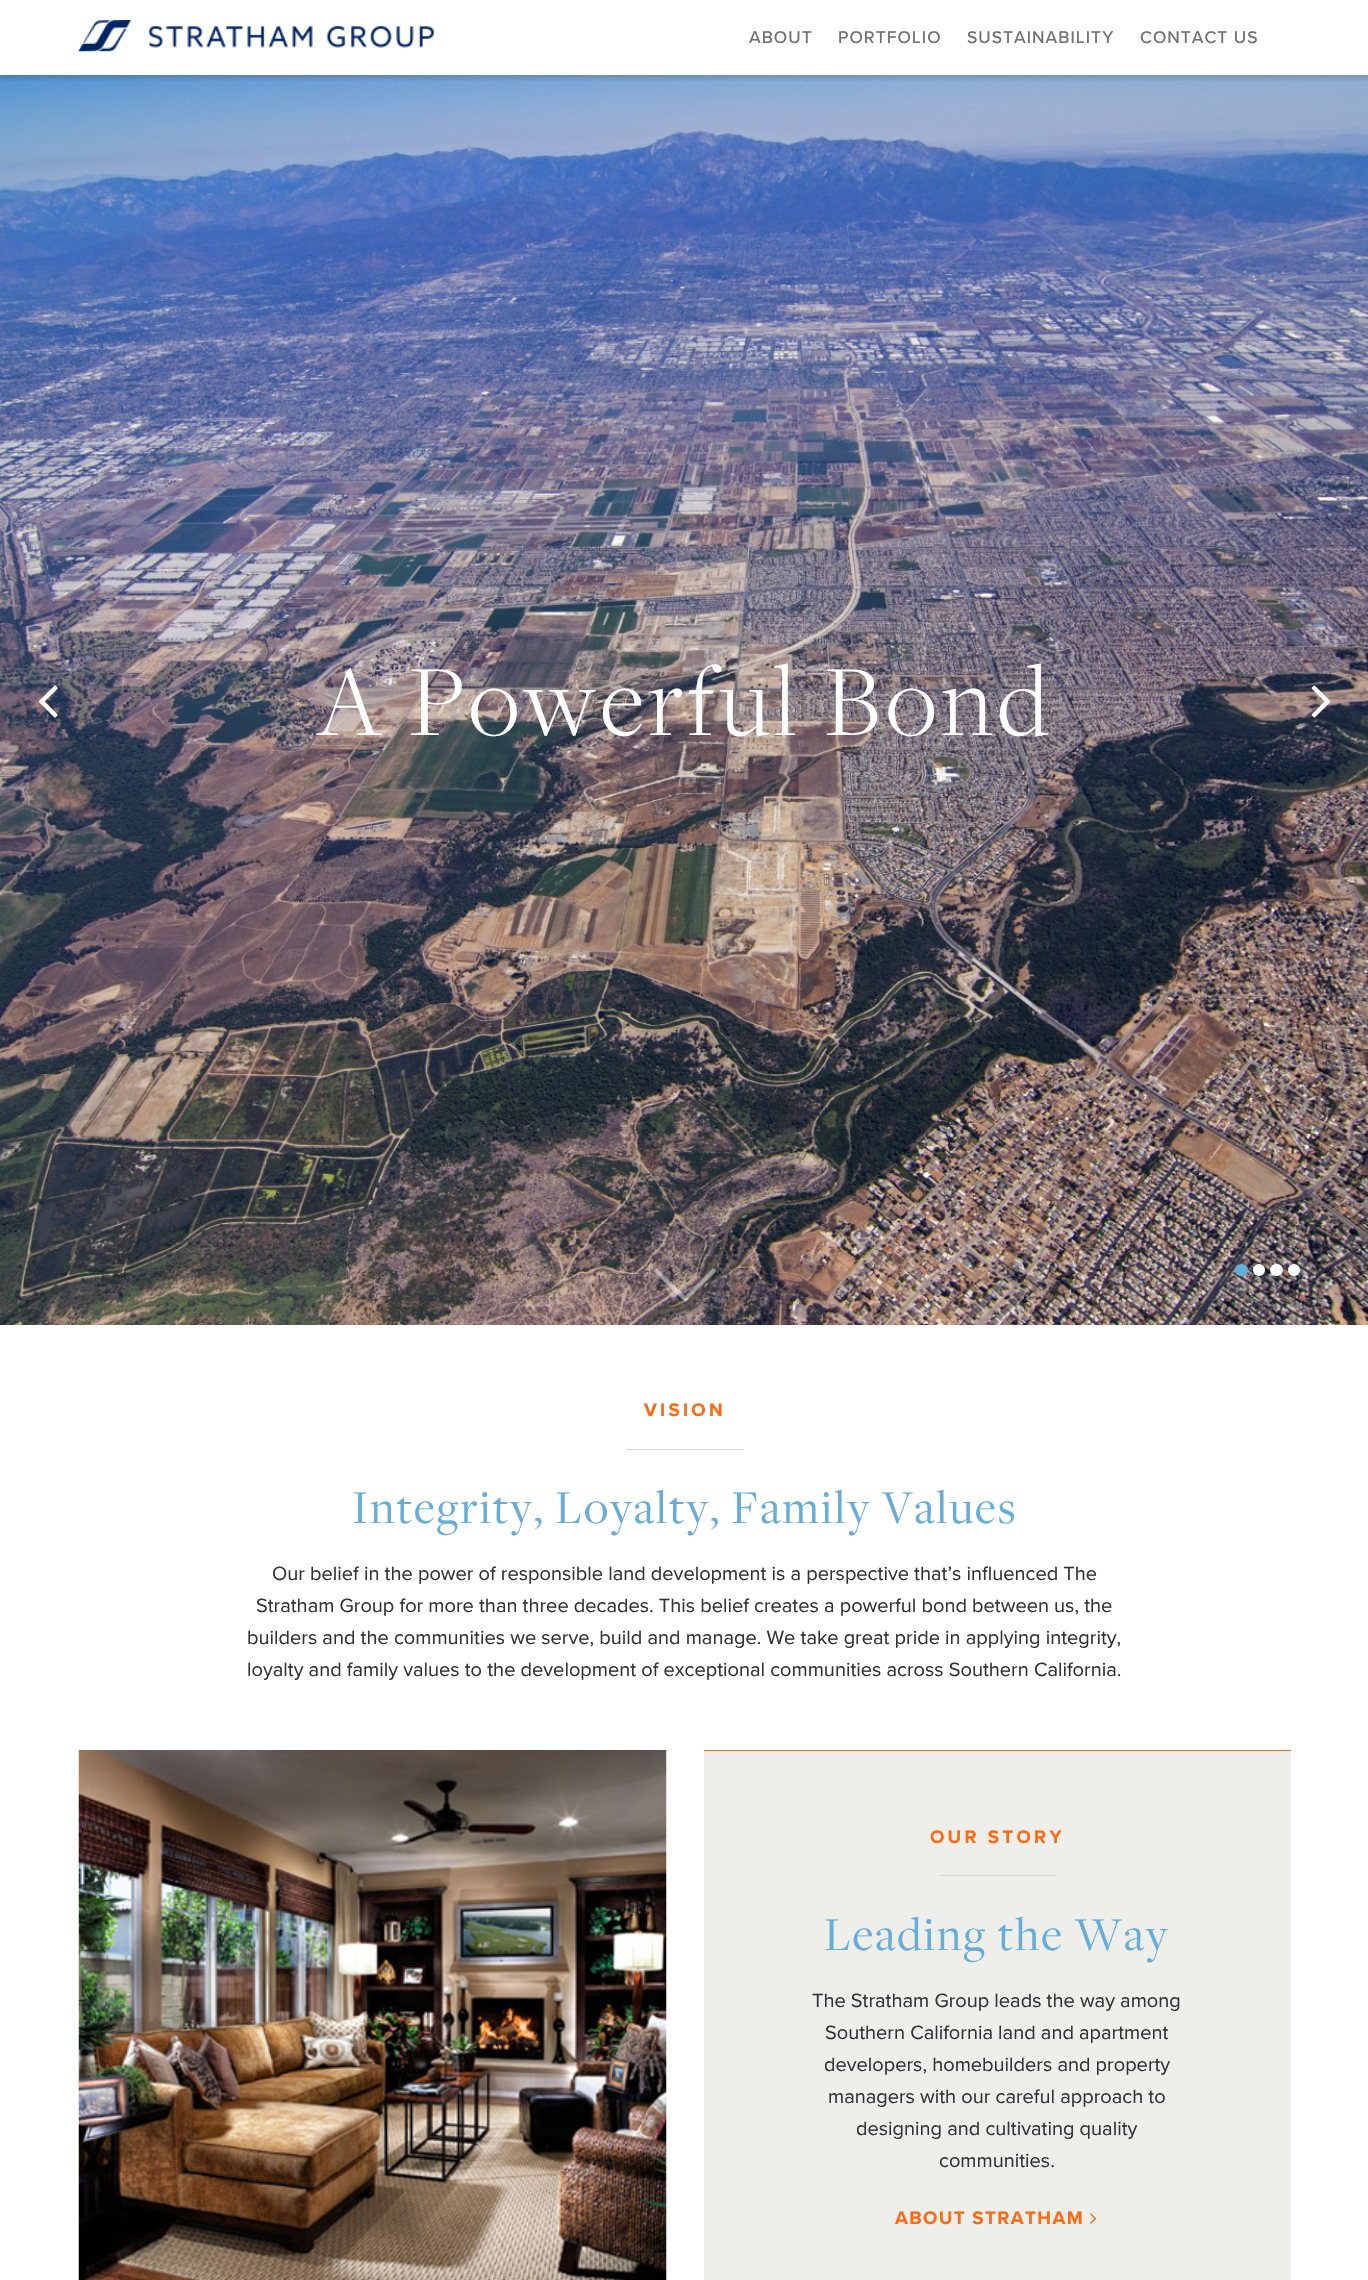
void draw(SkCanvas* canvas) {
    SkPaint paint;
    paint.setAntiAlias(true);
    auto face = [&](const char* family, int weight, float size, bool italic = false) {
        SkFontStyle style(weight, SkFontStyle::kNormal_Width,
            italic ? SkFontStyle::kItalic_Slant : SkFontStyle::kUpright_Slant);
        SkFont result(fontMgr->matchFamilyStyle(family, style), size);
        result.setSubpixel(true);
        return result;
    };
    auto write = [&](const char* s, float x, float y, const SkFont& font, SkColor color) {
        SkPaint ink(SkColor4f::FromColor(color));
        ink.setAntiAlias(true);
        canvas->drawString(s, x, y, font, ink);
    };
    auto writeSpaced = [&](const char* s, float x, float y, const SkFont& font, const SkPaint& ink, float letter, float word) {
        std::vector<SkGlyphID> glyphs(font.countText(s, strlen(s), SkTextEncoding::kUTF8));
        std::vector<float> xs(glyphs.size());
        font.textToGlyphs(s, strlen(s), SkTextEncoding::kUTF8, glyphs);
        font.getXPos(glyphs, xs, x);
        float extra = 0;
        for (size_t i = 0; i < glyphs.size(); i++) {
            xs[i] += extra;
            extra += letter + word * (glyphs[i] == font.unicharToGlyph(' '));
        }
        canvas->drawTextBlob(SkTextBlob::MakeFromPosHGlyphs(glyphs, xs, y, font), 0, 0, ink);
    };
    auto block = [&](float x, float y, float w, float h, SkColor color) {
        SkPaint ink(SkColor4f::FromColor(color));
        ink.setAntiAlias(true);
        canvas->drawRect(SkRect::MakeXYWH(x, y, w, h), ink);
    };
    auto card = [&](float x, float y, float w, float h, float radius, SkColor color) {
        SkPaint ink(SkColor4f::FromColor(color));
        ink.setAntiAlias(true);
        canvas->drawRoundRect(SkRect::MakeXYWH(x, y, w, h), radius, radius, ink);
    };
    auto paste = [&](const char* path, float x, float y, float w, float h) {
        auto image = SkImages::DeferredFromEncodedData(SkData::MakeFromFileName(path));
        canvas->drawImageRect(image, SkRect::MakeXYWH(x, y, w, h), SkSamplingOptions());
    };
    canvas->clear(SK_ColorWHITE);
    paste("pic3.png", 0, 75, 1368, 1250);
    canvas->save();
    canvas->clipRect(SkRect::MakeXYWH(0, 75, 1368, 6));
    paint.setColor(SkColorSetARGB(38, 17, 17, 17));
    paint.setMaskFilter(SkMaskFilter::MakeBlur(kNormal_SkBlurStyle, 2));
    canvas->drawRect(SkRect::MakeXYWH(0, 4, 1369, 75), paint);
    paint.setMaskFilter(nullptr);
    canvas->restore();
    paste("pic1.png", 78, 20, 356, 32);
    auto kFont1 = face("Proxima Nova", 500, 17.5f);
    paint.setColor(SkColorSetRGB(112, 113, 112));
    writeSpaced("ABOUT", 749, 43, kFont1, paint, 1, 0);
    writeSpaced("PORTFOLIO", 838, 43, kFont1, paint, 1, 0);
    writeSpaced("SUSTAINABILITY", 967, 43, kFont1, paint, 1, 0);
    writeSpaced("CONTACT US", 1140, 43, kFont1, paint, 1, 0);
    paste("pic2.png", 39, 685, 19, 33);
    auto kFont2 = face("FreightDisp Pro", 300, 105);
    paint.setColor(SK_ColorWHITE);
    writeSpaced("A Powerful Bond", 317, 735, kFont2, paint, 4.25f, 0);
    paste("pic4.png", 1311, 685, 20, 33);
    paste("pic5.png", 654, 1268, 62, 32);
    card(1235, 1264, 13, 12, 6, SkColorSetRGB(104, 173, 215));
    canvas->drawCircle(1259, 1270, 6, paint);
    card(1270, 1264, 13, 12, 6, SK_ColorWHITE);
    canvas->drawCircle(1294, 1270, 6, paint);
    auto kFont3 = face("Proxima Nova", 700, 18.75f);
    paint.setColor(SkColorSetRGB(255, 105, 19));
    writeSpaced("VISION", 644, 1416, kFont3, paint, 3.25f, 0);
    block(626, 1449, 118, 1, SkColorSetRGB(215, 215, 207));
    auto kFont4 = face("FreightDisp Pro", 400, 48.75f);
    paint.setColor(SkColorSetRGB(104, 173, 215));
    writeSpaced("Integrity, Loyalty, Family Values", 352, 1523, kFont4, paint, 1.95f, 0);
    auto kFont5 = face("Proxima Nova", 400, 20);
    write("Our belief in the power of responsible land development is a perspective that’s influenced The", 272, 1580, kFont5, SkColorSetRGB(50, 50, 50));
    write("Stratham Group for more than three decades. This belief creates a powerful bond between us, the", 256, 1612, kFont5, SkColorSetRGB(50, 50, 50));
    write("builders and the communities we serve, build and manage. We take great pride in applying integrity,", 247, 1644, kFont5, SkColorSetRGB(50, 50, 50));
    write("loyalty and family values to the development of exceptional communities across Southern California.", 247, 1676, kFont5, SkColorSetRGB(50, 50, 50));
    paste("pic6.png", 78, 1750, 589, 530);
    block(704, 1751, 587, 529, SkColorSetRGB(238, 238, 235));
    block(704, 1750, 587, 1, SkColorSetRGB(255, 105, 19));
    paint.setColor(SkColorSetRGB(255, 105, 19));
    writeSpaced("OUR STORY", 930, 1843, kFont3, paint, 3.25f, 0);
    block(939, 1875, 117, 1, SkColorSetRGB(215, 215, 207));
    paint.setColor(SkColorSetRGB(104, 173, 215));
    writeSpaced("Leading the Way", 824, 1950, kFont4, paint, 1.95f, 0);
    write("The Stratham Group leads the way among", 812, 2007, kFont5, SkColorSetRGB(50, 50, 50));
    write("Southern California land and apartment", 825, 2039, kFont5, SkColorSetRGB(50, 50, 50));
    write("developers, homebuilders and property", 824, 2071, kFont5, SkColorSetRGB(50, 50, 50));
    write("managers with our careful approach to", 828, 2103, kFont5, SkColorSetRGB(50, 50, 50));
    write("designing and cultivating quality", 856, 2135, kFont5, SkColorSetRGB(50, 50, 50));
    write("communities.", 939, 2167, kFont5, SkColorSetRGB(50, 50, 50));
    paint.setColor(SkColorSetRGB(255, 105, 19));
    writeSpaced("ABOUT STRATHAM", 895, 2224, kFont3, paint, 1.4f, 0);
    paste("pic7.png", 1090, 2213, 7, 11);
}
